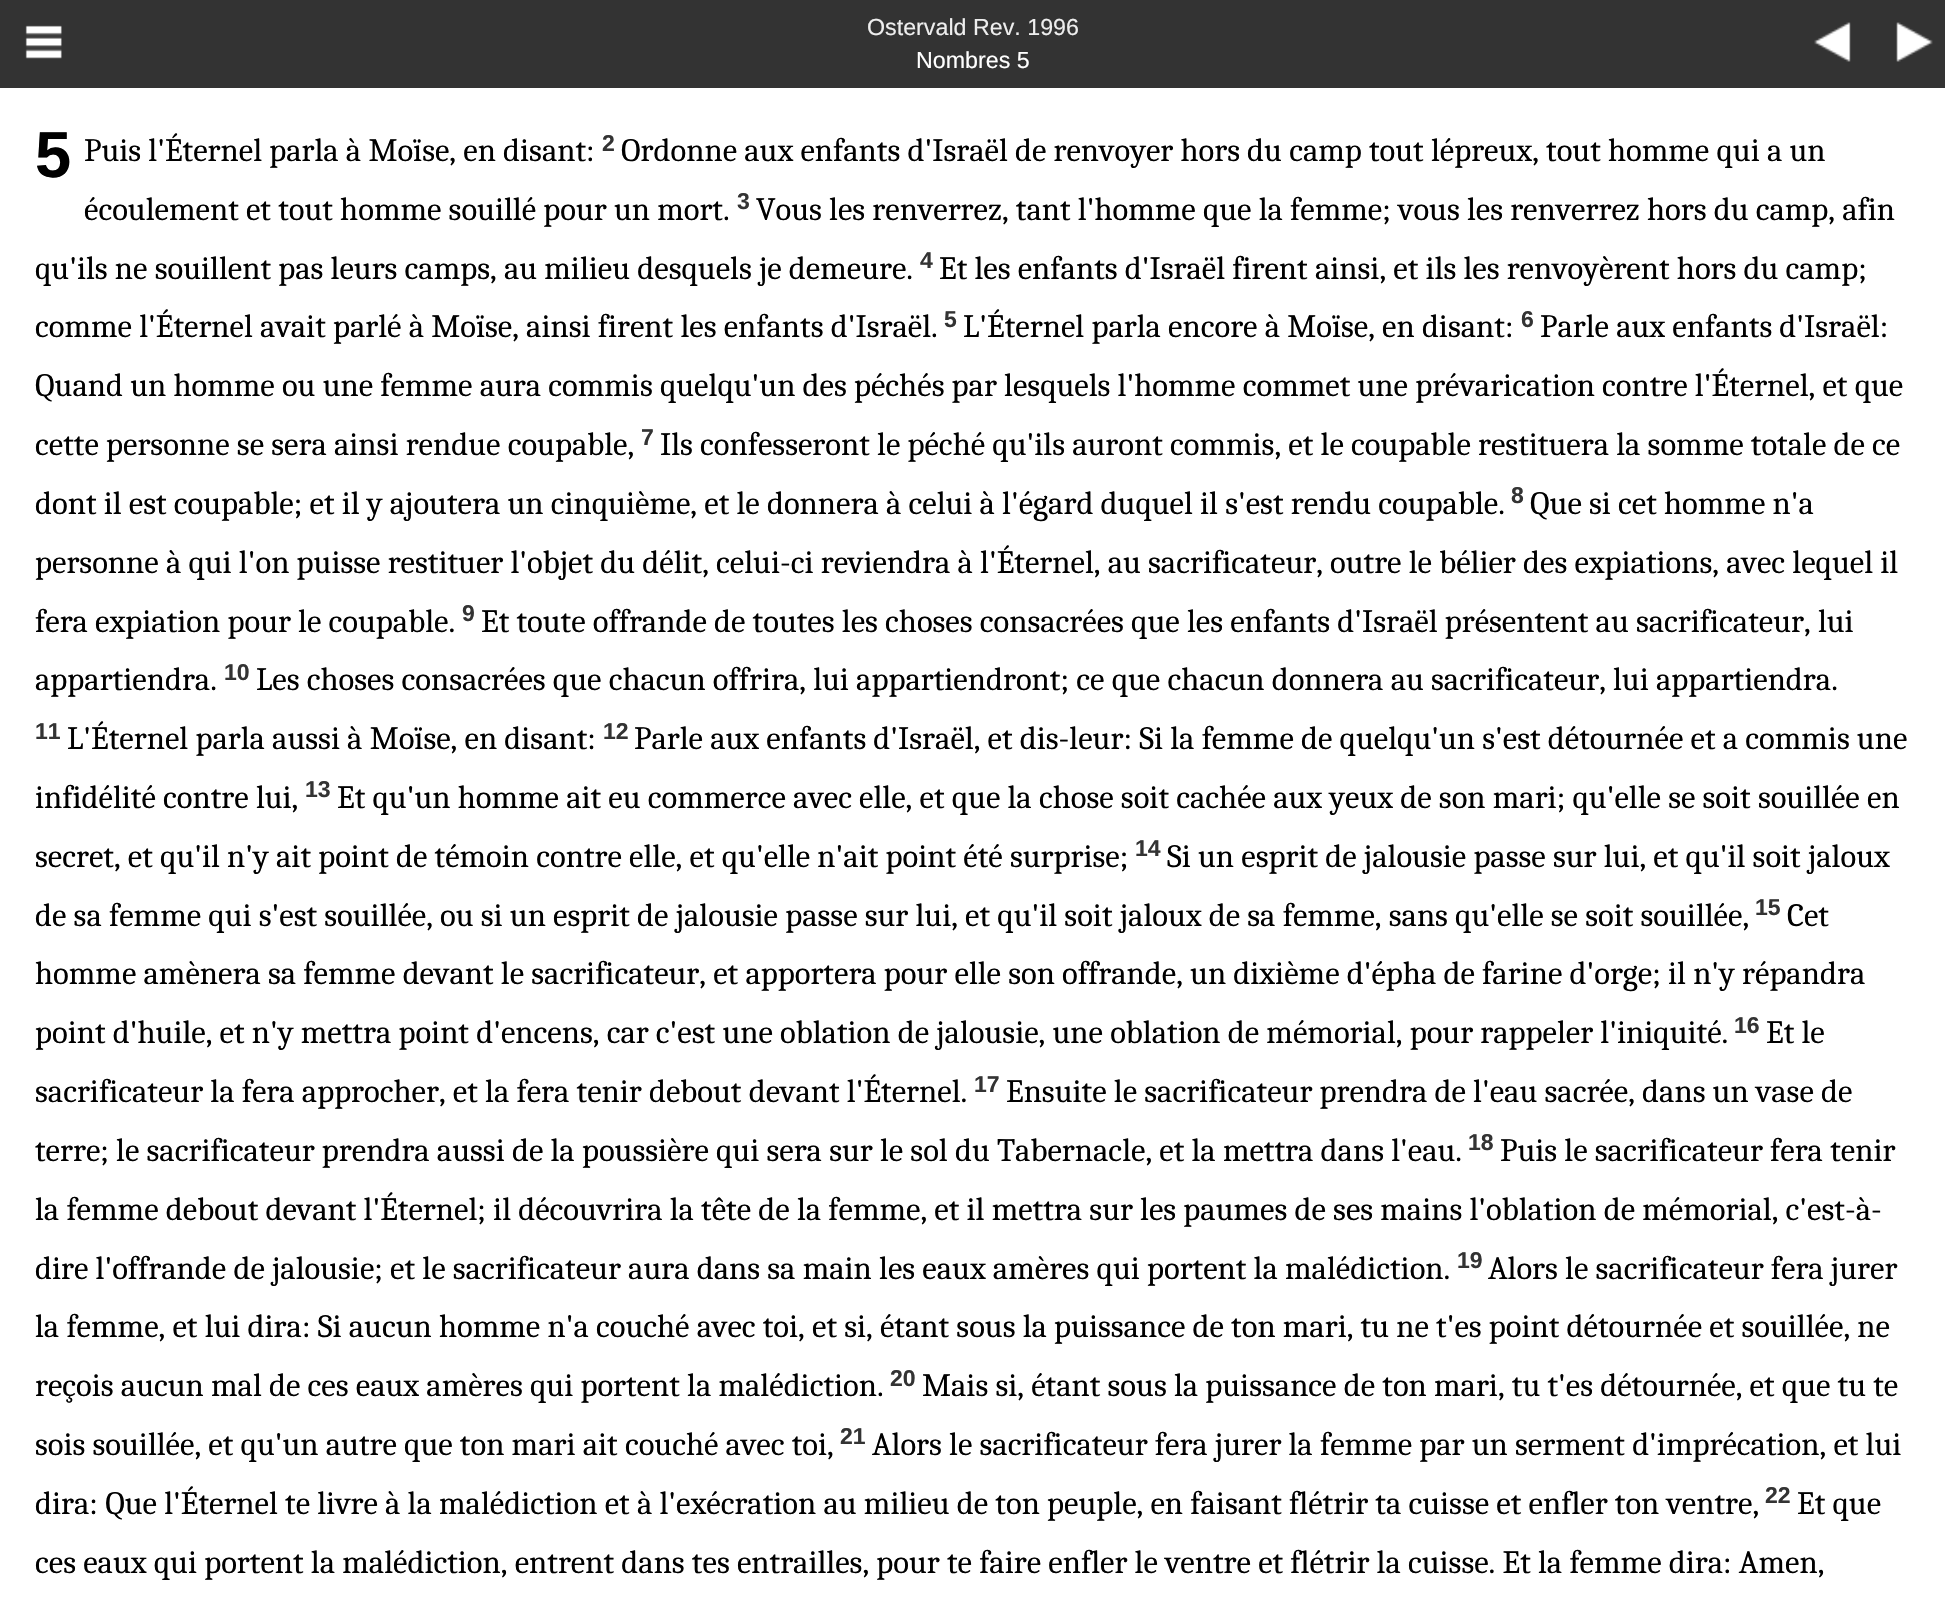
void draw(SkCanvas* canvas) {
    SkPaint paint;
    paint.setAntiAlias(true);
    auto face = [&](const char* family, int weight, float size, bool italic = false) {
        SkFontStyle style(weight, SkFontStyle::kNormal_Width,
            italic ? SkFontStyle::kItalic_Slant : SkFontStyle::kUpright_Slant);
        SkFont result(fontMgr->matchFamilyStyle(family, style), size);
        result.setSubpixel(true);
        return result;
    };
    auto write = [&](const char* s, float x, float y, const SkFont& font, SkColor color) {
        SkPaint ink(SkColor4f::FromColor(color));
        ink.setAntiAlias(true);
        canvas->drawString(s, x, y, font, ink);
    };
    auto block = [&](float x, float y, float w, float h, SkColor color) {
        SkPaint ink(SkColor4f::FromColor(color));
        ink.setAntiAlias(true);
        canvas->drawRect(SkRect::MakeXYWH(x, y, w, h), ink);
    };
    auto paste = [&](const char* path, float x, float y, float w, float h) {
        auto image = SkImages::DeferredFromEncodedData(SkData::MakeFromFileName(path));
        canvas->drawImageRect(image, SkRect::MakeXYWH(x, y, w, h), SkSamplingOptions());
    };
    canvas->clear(SK_ColorWHITE);
    block(0, 0, 1945, 88, SkColorSetRGB(51, 51, 51));
    paste("pic1.png", 25, 25, 37, 34);
    auto kFont1 = face("Liberation Sans", 400, 23.25f);
    write("Ostervald Rev. 1996", 867, 35, kFont1, SkColorSetRGB(238, 238, 238));
    paste("pic2.png", 1814, 22, 37, 40);
    paste("pic3.png", 1896, 22, 37, 40);
    write("Nombres 5", 916, 68, kFont1, SK_ColorWHITE);
    auto kFont2 = face("Liberation Sans", 700, 65);
    write("5", 35, 177, kFont2, SK_ColorBLACK);
    auto kFont3 = face("Caladea", 400, 32.67f);
    write("Puis l'Éternel parla à Moïse, en disant:", 84, 161, kFont3, SK_ColorBLACK);
    auto kFont4 = face("Liberation Sans", 700, 23);
    write("2", 602, 151, kFont4, SkColorSetRGB(51, 51, 51));
    write("Ordonne aux enfants d'Israël de renvoyer hors du camp tout lépreux, tout homme qui a un", 621, 161, kFont3, SK_ColorBLACK);
    write("écoulement et tout homme souillé pour un mort.", 84, 220, kFont3, SK_ColorBLACK);
    write("3", 737, 209, kFont4, SkColorSetRGB(51, 51, 51));
    write("Vous les renverrez, tant l'homme que la femme; vous les renverrez hors du camp, afin", 756, 220, kFont3, SK_ColorBLACK);
    write("qu'ils ne souillent pas leurs camps, au milieu desquels je demeure.", 35, 279, kFont3, SK_ColorBLACK);
    write("4", 920, 268, kFont4, SkColorSetRGB(51, 51, 51));
    write("Et les enfants d'Israël firent ainsi, et ils les renvoyèrent hors du camp;", 939, 279, kFont3, SK_ColorBLACK);
    write("comme l'Éternel avait parlé à Moïse, ainsi firent les enfants d'Israël.", 35, 337, kFont3, SK_ColorBLACK);
    write("5", 944, 327, kFont4, SkColorSetRGB(51, 51, 51));
    write("L'Éternel parla encore à Moïse, en disant:", 963, 337, kFont3, SK_ColorBLACK);
    write("6", 1521, 327, kFont4, SkColorSetRGB(51, 51, 51));
    write("Parle aux enfants d'Israël:", 1540, 337, kFont3, SK_ColorBLACK);
    write("Quand un homme ou une femme aura commis quelqu'un des péchés par lesquels l'homme commet une prévarication contre l'Éternel, et que", 35, 396, kFont3, SK_ColorBLACK);
    write("cette personne se sera ainsi rendue coupable,", 35, 455, kFont3, SK_ColorBLACK);
    write("7", 641, 445, kFont4, SkColorSetRGB(51, 51, 51));
    write("Ils confesseront le péché qu'ils auront commis, et le coupable restituera la somme totale de ce", 660, 455, kFont3, SK_ColorBLACK);
    write("dont il est coupable; et il y ajoutera un cinquième, et le donnera à celui à l'égard duquel il s'est rendu coupable.", 35, 514, kFont3, SK_ColorBLACK);
    write("8", 1511, 503, kFont4, SkColorSetRGB(51, 51, 51));
    write("Que si cet homme n'a", 1530, 514, kFont3, SK_ColorBLACK);
    write("personne à qui l'on puisse restituer l'objet du délit, celui-ci reviendra à l'Éternel, au sacrificateur, outre le bélier des expiations, avec lequel il", 35, 573, kFont3, SK_ColorBLACK);
    write("fera expiation pour le coupable.", 35, 632, kFont3, SK_ColorBLACK);
    write("9", 462, 621, kFont4, SkColorSetRGB(51, 51, 51));
    write("Et toute offrande de toutes les choses consacrées que les enfants d'Israël présentent au sacrificateur, lui", 481, 632, kFont3, SK_ColorBLACK);
    write("appartiendra.", 35, 690, kFont3, SK_ColorBLACK);
    write("10", 224, 680, kFont4, SkColorSetRGB(51, 51, 51));
    write("Les choses consacrées que chacun offrira, lui appartiendront; ce que chacun donnera au sacrificateur, lui appartiendra.", 256, 690, kFont3, SK_ColorBLACK);
    write("11", 35, 739, kFont4, SkColorSetRGB(51, 51, 51));
    write("L'Éternel parla aussi à Moïse, en disant:", 67, 749, kFont3, SK_ColorBLACK);
    write("12", 603, 739, kFont4, SkColorSetRGB(51, 51, 51));
    write("Parle aux enfants d'Israël, et dis-leur: Si la femme de quelqu'un s'est détournée et a commis une", 634, 749, kFont3, SK_ColorBLACK);
    write("infidélité contre lui,", 35, 808, kFont3, SK_ColorBLACK);
    write("13", 305, 797, kFont4, SkColorSetRGB(51, 51, 51));
    write("Et qu'un homme ait eu commerce avec elle, et que la chose soit cachée aux yeux de son mari; qu'elle se soit souillée en", 337, 808, kFont3, SK_ColorBLACK);
    write("secret, et qu'il n'y ait point de témoin contre elle, et qu'elle n'ait point été surprise;", 35, 867, kFont3, SK_ColorBLACK);
    write("14", 1135, 856, kFont4, SkColorSetRGB(51, 51, 51));
    write("Si un esprit de jalousie passe sur lui, et qu'il soit jaloux", 1167, 867, kFont3, SK_ColorBLACK);
    write("de sa femme qui s'est souillée, ou si un esprit de jalousie passe sur lui, et qu'il soit jaloux de sa femme, sans qu'elle se soit souillée,", 35, 926, kFont3, SK_ColorBLACK);
    write("15", 1755, 915, kFont4, SkColorSetRGB(51, 51, 51));
    write("Cet", 1787, 926, kFont3, SK_ColorBLACK);
    write("homme amènera sa femme devant le sacrificateur, et apportera pour elle son offrande, un dixième d'épha de farine d'orge; il n'y répandra", 35, 984, kFont3, SK_ColorBLACK);
    write("point d'huile, et n'y mettra point d'encens, car c'est une oblation de jalousie, une oblation de mémorial, pour rappeler l'iniquité.", 35, 1043, kFont3, SK_ColorBLACK);
    write("16", 1734, 1033, kFont4, SkColorSetRGB(51, 51, 51));
    write("Et le", 1766, 1043, kFont3, SK_ColorBLACK);
    write("sacrificateur la fera approcher, et la fera tenir debout devant l'Éternel.", 35, 1102, kFont3, SK_ColorBLACK);
    write("17", 974, 1092, kFont4, SkColorSetRGB(51, 51, 51));
    write("Ensuite le sacrificateur prendra de l'eau sacrée, dans un vase de", 1006, 1102, kFont3, SK_ColorBLACK);
    write("terre; le sacrificateur prendra aussi de la poussière qui sera sur le sol du Tabernacle, et la mettra dans l'eau.", 35, 1161, kFont3, SK_ColorBLACK);
    write("18", 1468, 1150, kFont4, SkColorSetRGB(51, 51, 51));
    write("Puis le sacrificateur fera tenir", 1500, 1161, kFont3, SK_ColorBLACK);
    write("la femme debout devant l'Éternel; il découvrira la tête de la femme, et il mettra sur les paumes de ses mains l'oblation de mémorial, c'est-à-", 35, 1220, kFont3, SK_ColorBLACK);
    write("dire l'offrande de jalousie; et le sacrificateur aura dans sa main les eaux amères qui portent la malédiction.", 35, 1279, kFont3, SK_ColorBLACK);
    write("19", 1457, 1268, kFont4, SkColorSetRGB(51, 51, 51));
    write("Alors le sacrificateur fera jurer", 1488, 1279, kFont3, SK_ColorBLACK);
    write("la femme, et lui dira: Si aucun homme n'a couché avec toi, et si, étant sous la puissance de ton mari, tu ne t'es point détournée et souillée, ne", 35, 1337, kFont3, SK_ColorBLACK);
    write("reçois aucun mal de ces eaux amères qui portent la malédiction.", 35, 1396, kFont3, SK_ColorBLACK);
    write("20", 890, 1386, kFont4, SkColorSetRGB(51, 51, 51));
    write("Mais si, étant sous la puissance de ton mari, tu t'es détournée, et que tu te", 922, 1396, kFont3, SK_ColorBLACK);
    write("sois souillée, et qu'un autre que ton mari ait couché avec toi,", 35, 1455, kFont3, SK_ColorBLACK);
    write("21", 840, 1444, kFont4, SkColorSetRGB(51, 51, 51));
    write("Alors le sacrificateur fera jurer la femme par un serment d'imprécation, et lui", 872, 1455, kFont3, SK_ColorBLACK);
    write("dira: Que l'Éternel te livre à la malédiction et à l'exécration au milieu de ton peuple, en faisant flétrir ta cuisse et enfler ton ventre,", 35, 1514, kFont3, SK_ColorBLACK);
    write("22", 1765, 1503, kFont4, SkColorSetRGB(51, 51, 51));
    write("Et que", 1797, 1514, kFont3, SK_ColorBLACK);
    write("ces eaux qui portent la malédiction, entrent dans tes entrailles, pour te faire enfler le ventre et flétrir la cuisse. Et la femme dira: Amen,", 35, 1573, kFont3, SK_ColorBLACK);
}
